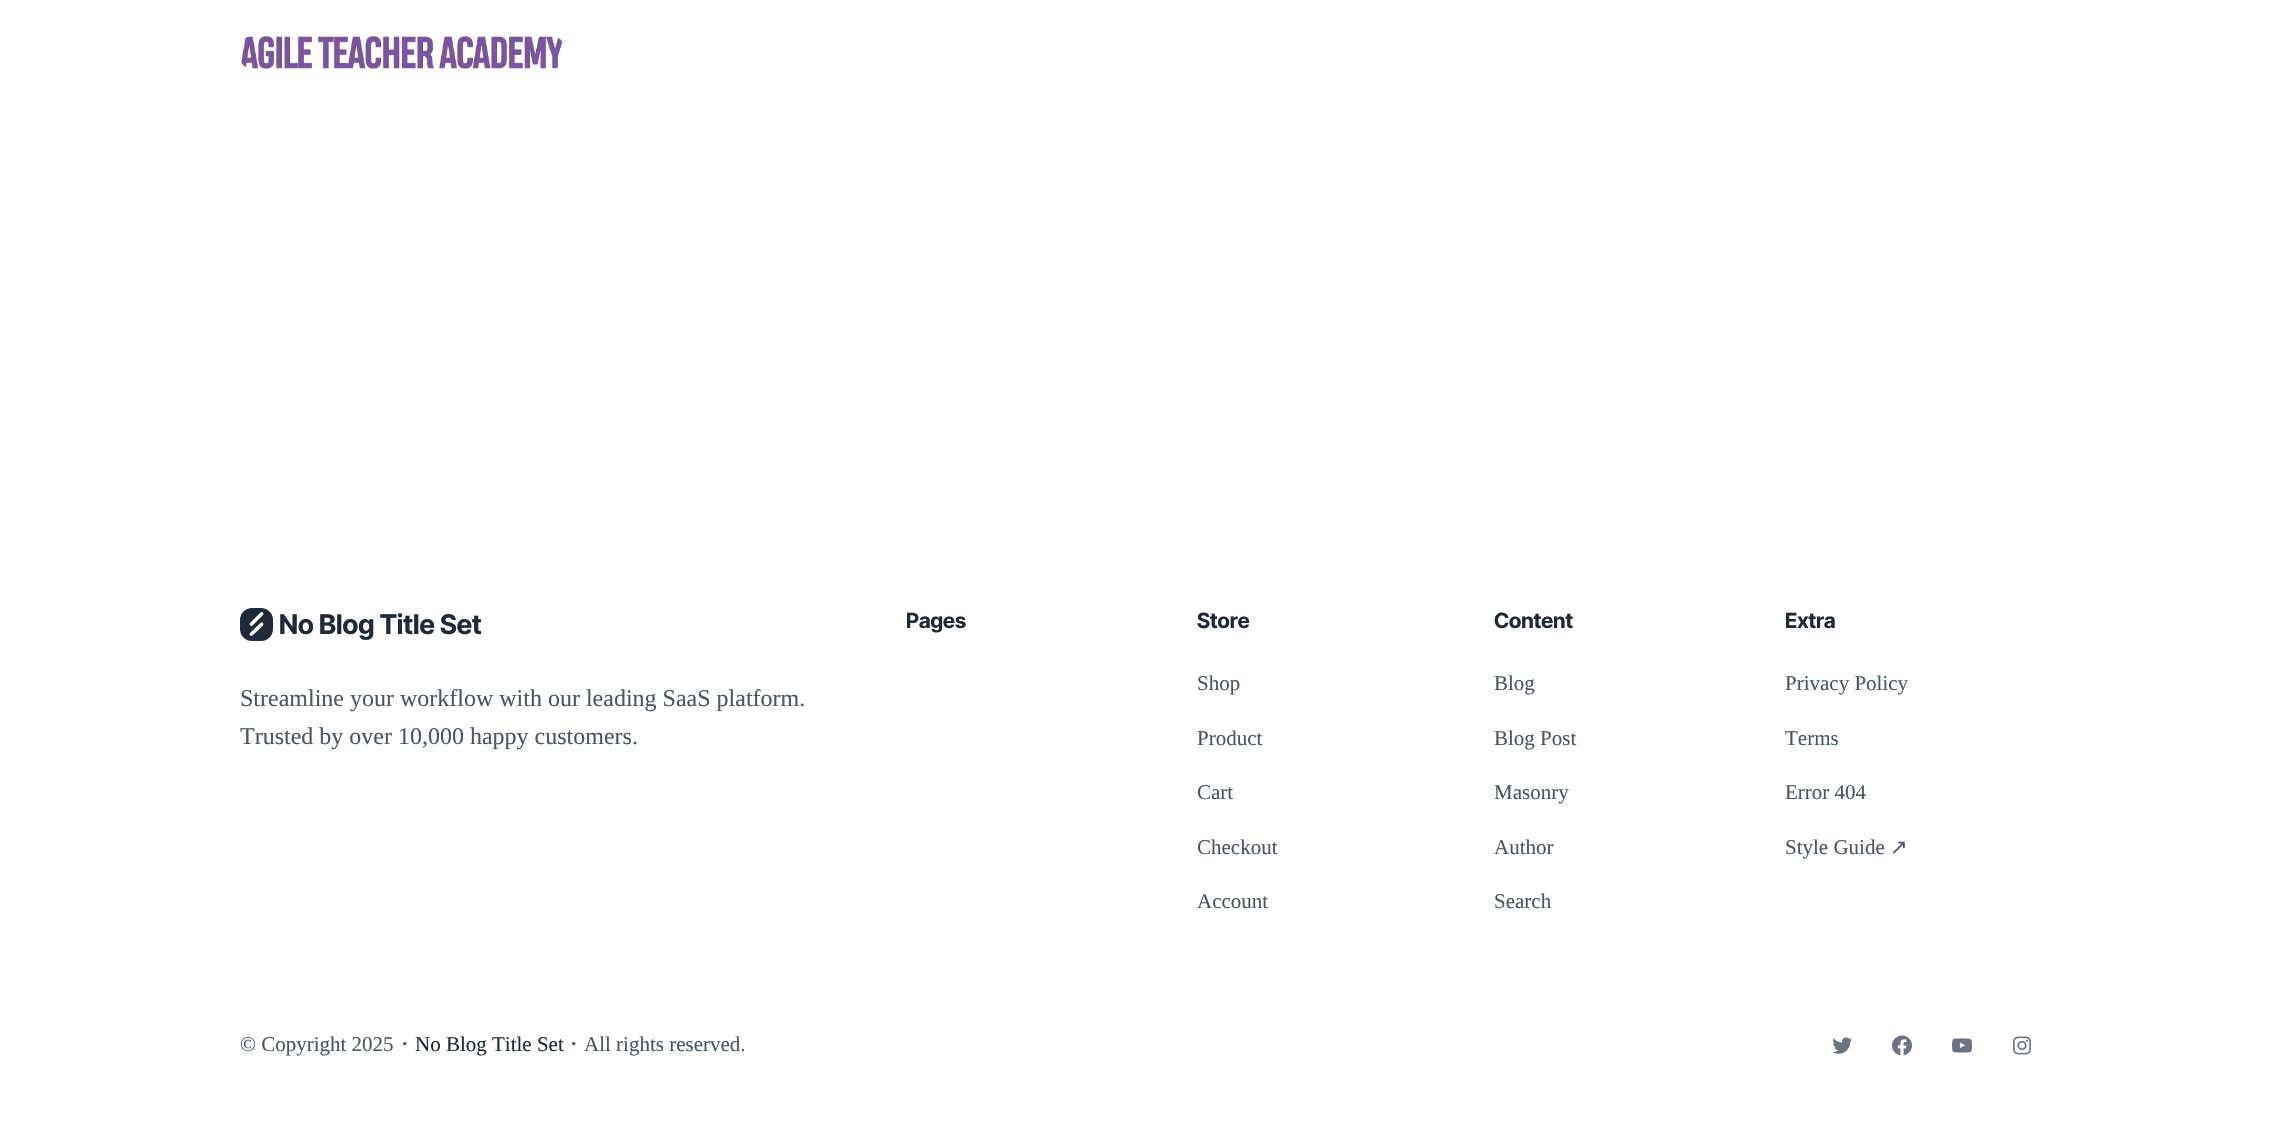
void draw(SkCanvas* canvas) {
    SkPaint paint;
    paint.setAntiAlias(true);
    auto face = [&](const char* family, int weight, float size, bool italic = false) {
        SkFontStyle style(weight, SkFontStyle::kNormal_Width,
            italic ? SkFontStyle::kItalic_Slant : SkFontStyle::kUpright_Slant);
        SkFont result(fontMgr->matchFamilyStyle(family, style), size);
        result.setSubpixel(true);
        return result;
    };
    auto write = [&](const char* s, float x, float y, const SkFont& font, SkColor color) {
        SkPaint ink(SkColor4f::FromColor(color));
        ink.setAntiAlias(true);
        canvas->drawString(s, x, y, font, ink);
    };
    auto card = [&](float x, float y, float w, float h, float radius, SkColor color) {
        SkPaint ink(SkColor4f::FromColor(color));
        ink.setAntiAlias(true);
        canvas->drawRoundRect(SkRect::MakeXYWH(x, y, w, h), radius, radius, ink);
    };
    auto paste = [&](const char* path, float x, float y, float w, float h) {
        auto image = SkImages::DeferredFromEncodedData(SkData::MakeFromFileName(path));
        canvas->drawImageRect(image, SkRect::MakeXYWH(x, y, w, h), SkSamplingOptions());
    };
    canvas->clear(SK_ColorWHITE);
    paste("pic1.png", 241, 36, 322, 33);
    card(240, 608, 33, 33, 12, SkColorSetRGB(31, 41, 55));
    paint.setColor(SK_ColorWHITE);
    canvas->drawPath(SkPathBuilder().moveTo(250, 623).lineTo(260.5f, 612.5f).cubicTo(261, 612, 262, 612, 263, 612.5f).cubicTo(263.5f, 613.5f, 263.5f, 614.5f, 263, 615).lineTo(252.5f, 625.5f).cubicTo(252, 626, 251, 626, 250, 625.5f).cubicTo(249.5f, 624.5f, 249.5f, 623.5f, 250, 623).close().detach(), paint);
    canvas->drawPath(SkPathBuilder().moveTo(250, 633).lineTo(260.5f, 623).cubicTo(261, 622, 262, 622, 263, 623).cubicTo(263.5f, 623.5f, 263.5f, 624.5f, 263, 625.5f).lineTo(252.5f, 635.5f).cubicTo(252, 636, 251, 636, 250, 635.5f).cubicTo(249.5f, 635, 249.5f, 633.5f, 250, 633).close().detach(), paint);
    auto kFont1 = face("Inter Tight", 700, 27);
    write("No Blog Title Set", 279, 634, kFont1, SkColorSetRGB(31, 41, 55));
    auto kFont2 = face("Liberation Serif", 400, 24);
    write("Streamline your workflow with our leading SaaS platform.", 240, 706, kFont2, SkColorSetRGB(75, 85, 99));
    write("Trusted by over 10,000 happy customers.", 240, 744, kFont2, SkColorSetRGB(75, 85, 99));
    auto kFont3 = face("Inter Tight", 700, 21);
    write("Pages", 906, 628, kFont3, SkColorSetRGB(31, 41, 55));
    write("Store", 1197, 628, kFont3, SkColorSetRGB(31, 41, 55));
    auto kFont4 = face("Liberation Serif", 400, 21);
    write("Shop", 1197, 690, kFont4, SkColorSetRGB(75, 85, 99));
    write("Product", 1197, 745, kFont4, SkColorSetRGB(75, 85, 99));
    write("Cart", 1197, 799, kFont4, SkColorSetRGB(75, 85, 99));
    write("Checkout", 1197, 854, kFont4, SkColorSetRGB(75, 85, 99));
    write("Account", 1197, 908, kFont4, SkColorSetRGB(75, 85, 99));
    write("Content", 1494, 628, kFont3, SkColorSetRGB(31, 41, 55));
    write("Blog", 1494, 690, kFont4, SkColorSetRGB(75, 85, 99));
    write("Blog Post", 1494, 745, kFont4, SkColorSetRGB(75, 85, 99));
    write("Masonry", 1494, 799, kFont4, SkColorSetRGB(75, 85, 99));
    write("Author", 1494, 854, kFont4, SkColorSetRGB(75, 85, 99));
    write("Search", 1494, 908, kFont4, SkColorSetRGB(75, 85, 99));
    write("Extra", 1785, 628, kFont3, SkColorSetRGB(31, 41, 55));
    write("Privacy Policy", 1785, 690, kFont4, SkColorSetRGB(75, 85, 99));
    write("Terms", 1785, 745, kFont4, SkColorSetRGB(75, 85, 99));
    write("Error 404", 1785, 799, kFont4, SkColorSetRGB(75, 85, 99));
    write("Style Guide", 1785, 854, kFont4, SkColorSetRGB(75, 85, 99));
    auto kFont5 = face("DejaVu Sans", 400, 21);
    write("↗", 1890, 854, kFont5, SkColorSetRGB(75, 85, 99));
    write("© Copyright 2025", 240, 1051, kFont4, SkColorSetRGB(75, 85, 99));
    auto kFont6 = face("WenQuanYi Zen Hei", 500, 21);
    write("・", 394, 1051, kFont6, SkColorSetRGB(75, 85, 99));
    write("No Blog Title Set", 415, 1051, kFont4, SkColorSetRGB(31, 41, 55));
    write("・", 563, 1051, kFont6, SkColorSetRGB(75, 85, 99));
    write("All rights reserved.", 584, 1051, kFont4, SkColorSetRGB(75, 85, 99));
    paste("pic2.png", 1832, 1037, 20, 17);
    paste("pic3.png", 1892, 1035, 20, 21);
    paste("pic4.png", 1952, 1038, 20, 15);
    paste("pic5.png", 2013, 1036, 18, 19);
}
